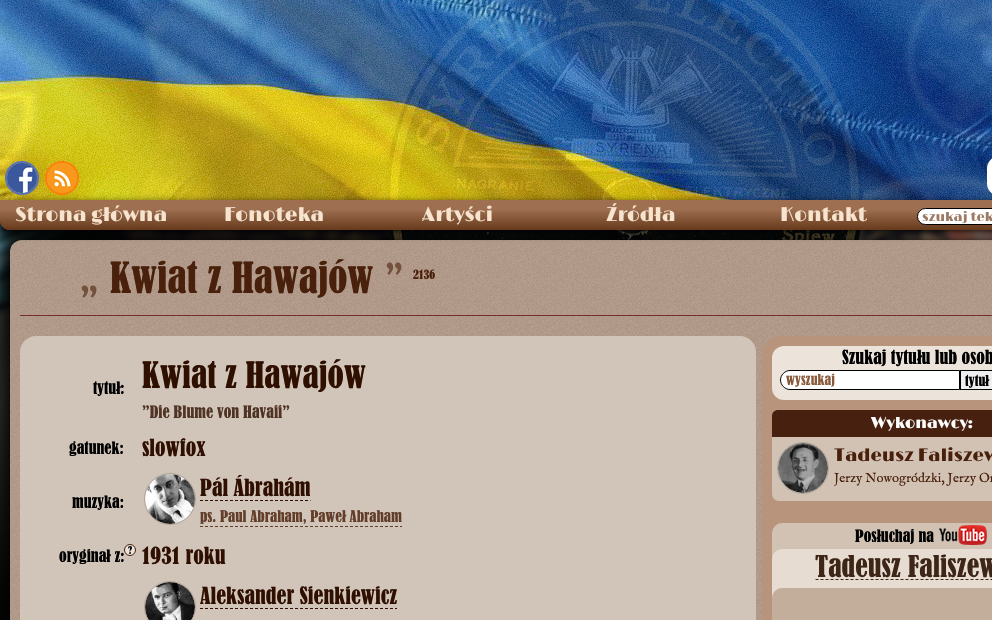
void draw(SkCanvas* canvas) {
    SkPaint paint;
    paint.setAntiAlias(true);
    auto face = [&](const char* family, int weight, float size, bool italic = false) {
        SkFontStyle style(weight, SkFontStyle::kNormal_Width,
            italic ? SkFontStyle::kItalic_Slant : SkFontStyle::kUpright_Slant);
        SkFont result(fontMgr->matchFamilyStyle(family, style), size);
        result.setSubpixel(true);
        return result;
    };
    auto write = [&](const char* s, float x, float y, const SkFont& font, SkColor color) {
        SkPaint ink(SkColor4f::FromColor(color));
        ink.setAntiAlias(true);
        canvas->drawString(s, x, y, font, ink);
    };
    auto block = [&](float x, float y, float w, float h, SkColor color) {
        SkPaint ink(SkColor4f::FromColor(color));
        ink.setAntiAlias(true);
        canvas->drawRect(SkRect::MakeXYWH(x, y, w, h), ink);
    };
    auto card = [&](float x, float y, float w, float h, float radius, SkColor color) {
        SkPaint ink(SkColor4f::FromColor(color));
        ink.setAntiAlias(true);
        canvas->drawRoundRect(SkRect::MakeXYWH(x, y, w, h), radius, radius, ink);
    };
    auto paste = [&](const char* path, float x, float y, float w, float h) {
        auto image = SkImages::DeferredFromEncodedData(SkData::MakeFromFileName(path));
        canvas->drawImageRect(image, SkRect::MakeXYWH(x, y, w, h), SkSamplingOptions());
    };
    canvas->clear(SK_ColorWHITE);
    paste("pic1.png", 0, 0, 992, 620);
    paste("pic2.png", 385, 0, 479, 240);
    paste("pic3.png", 0, 0, 992, 200);
    paint.setStyle(SkPaint::kStroke_Style);
    paint.setStrokeWidth(2);
    paint.setColor(SkColorSetRGB(87, 115, 185));
    canvas->drawCircle(22, 178, 16, paint);
    paste("pic4.png", 7, 163, 30, 30);
    paint.setColor(SkColorSetRGB(255, 125, 11));
    canvas->drawCircle(62, 178, 16, paint);
    paste("pic5.png", 47, 163, 30, 30);
    card(987, 156, 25, 40, 20, SK_ColorWHITE);
    paint.setStyle(SkPaint::kFill_Style);
    paint.setColor(SK_ColorBLACK);
    paint.setMaskFilter(SkMaskFilter::MakeBlur(kNormal_SkBlurStyle, 7.5f));
    canvas->drawRoundRect(SkRect::MakeXYWH(6, 236, 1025, 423), 16, 16, paint);
    paint.setMaskFilter(nullptr);
    card(10, 240, 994, 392, 12, SkColorSetRGB(192, 162, 139));
    paste("pic6.png", 10, 240, 982, 380);
    paint.setMaskFilter(SkMaskFilter::MakeBlur(kNormal_SkBlurStyle, 4));
    canvas->drawRoundRect(SkRect::MakeXYWH(0, 203, 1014, 30), 10, 10, paint);
    paint.setMaskFilter(nullptr);
    {
        const SkColor colors[] = {SkColorSetRGB(158, 111, 81), SkColorSetRGB(104, 58, 28)};
        const float stops[] = {0.3f, 1};
        const SkPoint ends[] = {{550, 200}, {550, 230}};
        paint.setShader(SkGradientShader::MakeLinear(ends, colors, stops, 2, SkTileMode::kClamp));
        paint.setAlpha(255);
    }
    canvas->drawPath(SkPathBuilder().moveTo(0, 200).lineTo(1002, 200).lineTo(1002, 220).cubicTo(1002, 225.5f, 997.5f, 230, 992, 230).lineTo(10, 230).cubicTo(4.5f, 230, 0, 225.5f, 0, 220).close().detach(), paint);
    {
        const SkColor colors[] = {SkColorSetRGB(158, 111, 81), SkColorSetRGB(104, 58, 28)};
        const float stops[] = {0.3f, 1};
        const SkPoint ends[] = {{92, 200}, {92, 230}};
        paint.setShader(SkGradientShader::MakeLinear(ends, colors, stops, 2, SkTileMode::kClamp));
        paint.setAlpha(255);
    }
    canvas->drawPath(SkPathBuilder().moveTo(0, 200).lineTo(183, 200).lineTo(183, 230).lineTo(10, 230).cubicTo(4.5f, 230, 0, 225.5f, 0, 220).close().detach(), paint);
    auto kFont1 = face("Limelight", 300, 20);
    write("Strona główna", 15, 221, kFont1, SkColorSetRGB(247, 228, 207));
    write("Fonoteka", 224, 221, kFont1, SkColorSetRGB(247, 228, 207));
    write("Artyści", 422, 221, kFont1, SkColorSetRGB(247, 228, 207));
    write("Źródła", 606, 221, kFont1, SkColorSetRGB(247, 228, 207));
    write("Kontakt", 780, 221, kFont1, SkColorSetRGB(247, 228, 207));
    paint.setShader(nullptr);
    paint.setColor(SK_ColorWHITE);
    canvas->drawRoundRect(SkRect::MakeXYWH(917.5f, 208.5f, 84, 16), 8, 8, paint);
    paint.setStyle(SkPaint::kStroke_Style);
    paint.setStrokeWidth(1);
    paint.setColor(SK_ColorBLACK);
    canvas->drawRoundRect(SkRect::MakeXYWH(917.5f, 208.5f, 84, 16), 8, 8, paint);
    auto kFont2 = face("Limelight", 300, 13);
    write("szukaj tek", 922, 221, kFont2, SkColorSetRGB(156, 122, 99));
    auto kFont3 = face("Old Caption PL", 400, 40);
    write("Kwiat z Hawajów", 110, 293, kFont3, SkColorSetRGB(73, 32, 11));
    auto kFont4 = face("Old Caption PL", 400, 38);
    write("”", 385, 293, kFont4, SkColorSetRGB(114, 81, 61));
    auto kFont5 = face("Old Caption PL", 400, 12);
    write("2136", 413, 279, kFont5, SkColorSetRGB(73, 32, 11));
    write("„", 80, 293, kFont4, SkColorSetRGB(114, 81, 61));
    block(20, 315, 972, 1, SkColorSetRGB(116, 46, 46));
    card(20, 336, 736, 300, 16, SkColorSetRGB(209, 196, 185));
    auto kFont6 = face("Old Caption PL", 400, 16);
    write("tytuł:", 93, 394, kFont6, SK_ColorBLACK);
    auto kFont7 = face("Old Caption PL", 400, 34);
    write("Kwiat z Hawajów", 142, 388, kFont7, SkColorSetRGB(47, 15, 0));
    write("”Die Blume von Havaii”", 142, 418, kFont6, SkColorSetRGB(79, 51, 37));
    write("gatunek:", 69, 454, kFont6, SK_ColorBLACK);
    auto kFont8 = face("Old Caption PL", 400, 22);
    write("slowfox", 142, 456, kFont8, SkColorSetRGB(47, 15, 0));
    write("muzyka:", 72, 508, kFont6, SK_ColorBLACK);
    paste("pic7.png", 145, 474, 50, 50);
    paint.setColor(SkColorSetRGB(177, 165, 154));
    canvas->drawCircle(170, 499, 25.5f, paint);
    write("Pál Ábrahám", 200, 496, kFont8, SkColorSetRGB(47, 15, 0));
    paint.setColor(SkColorSetRGB(47, 15, 0));
    paint.setPathEffect(SkDashPathEffect::Make({{3, 2}}, 0));
    canvas->drawPath(SkPathBuilder().moveTo(200, 500.5f).lineTo(310.5f, 500.5f).detach(), paint);
    paint.setPathEffect(nullptr);
    auto kFont9 = face("Old Caption PL", 400, 15);
    write("ps. Paul Abraham, Paweł Abraham", 200, 522, kFont9, SkColorSetRGB(98, 62, 42));
    paint.setColor(SkColorSetRGB(98, 62, 42));
    paint.setPathEffect(SkDashPathEffect::Make({{3, 2}}, 0));
    canvas->drawPath(SkPathBuilder().moveTo(200, 526.5f).lineTo(402, 526.5f).detach(), paint);
    paint.setPathEffect(nullptr);
    write("oryginał z:", 59, 562, kFont6, SK_ColorBLACK);
    paint.setStyle(SkPaint::kFill_Style);
    paint.setColor(SkColorSetRGB(236, 228, 218));
    canvas->drawCircle(130, 550, 5.5f, paint);
    paint.setStyle(SkPaint::kStroke_Style);
    paint.setColor(SkColorSetRGB(73, 32, 11));
    canvas->drawCircle(130, 550, 5.5f, paint);
    auto kFont10 = face("Old Caption PL", 400, 10);
    write("?", 128, 554, kFont10, SK_ColorBLACK);
    write("1931 roku", 142, 564, kFont8, SkColorSetRGB(47, 15, 0));
    paste("pic8.png", 145, 582, 50, 38);
    paint.setColor(SkColorSetRGB(177, 165, 154));
    canvas->drawCircle(170, 607, 25.5f, paint);
    write("Aleksander Sienkiewicz", 200, 604, kFont8, SkColorSetRGB(47, 15, 0));
    paint.setColor(SkColorSetRGB(47, 15, 0));
    paint.setPathEffect(SkDashPathEffect::Make({{3, 2}}, 0));
    canvas->drawPath(SkPathBuilder().moveTo(200, 608.5f).lineTo(397, 608.5f).detach(), paint);
    paint.setPathEffect(nullptr);
    card(762, 336, 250, 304, 20, SkColorSetRGB(184, 148, 124));
    card(772, 346, 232, 54, 12, SkColorSetRGB(236, 228, 218));
    auto kFont11 = face("Old Caption PL", 400, 18);
    write("Szukaj tytułu lub osob", 842, 364, kFont11, SK_ColorBLACK);
    paint.setStyle(SkPaint::kFill_Style);
    paint.setColor(SK_ColorWHITE);
    canvas->drawPath(SkPathBuilder().moveTo(790, 370.5f).lineTo(959.5f, 370.5f).lineTo(959.5f, 389.5f).lineTo(790, 389.5f).cubicTo(785, 389.5f, 780.5f, 385, 780.5f, 380).cubicTo(780.5f, 375, 785, 370.5f, 790, 370.5f).close().detach(), paint);
    paint.setStyle(SkPaint::kStroke_Style);
    paint.setColor(SK_ColorBLACK);
    canvas->drawPath(SkPathBuilder().moveTo(790, 370.5f).lineTo(959.5f, 370.5f).lineTo(959.5f, 389.5f).lineTo(790, 389.5f).cubicTo(785, 389.5f, 780.5f, 385, 780.5f, 380).cubicTo(780.5f, 375, 785, 370.5f, 790, 370.5f).close().detach(), paint);
    auto kFont12 = face("Old Caption PL", 400, 14);
    write("wyszukaj", 786, 385, kFont12, SkColorSetRGB(137, 90, 60));
    paint.setStyle(SkPaint::kFill_Style);
    paint.setColor(SkColorSetRGB(239, 239, 239));
    canvas->drawRect(SkRect::MakeXYWH(960.5f, 370.5f, 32, 19), paint);
    paint.setStyle(SkPaint::kStroke_Style);
    paint.setColor(SK_ColorBLACK);
    canvas->drawRect(SkRect::MakeXYWH(960.5f, 370.5f, 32, 19), paint);
    write("tytuł", 965, 386, kFont12, SK_ColorBLACK);
    card(772, 410, 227, 91, 7, SkColorSetRGB(209, 194, 180));
    paint.setStyle(SkPaint::kFill_Style);
    paint.setColor(SkColorSetRGB(71, 32, 15));
    canvas->drawPath(SkPathBuilder().moveTo(778, 410).lineTo(992, 410).cubicTo(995.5f, 410, 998, 412.5f, 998, 416).lineTo(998, 437).lineTo(772, 437).lineTo(772, 416).cubicTo(772, 412.5f, 774.5f, 410, 778, 410).close().detach(), paint);
    auto kFont13 = face("Limelight", 300, 16);
    write("Wykonawcy:", 871, 428, kFont13, SK_ColorWHITE);
    paste("pic9.png", 778, 443, 50, 50);
    paint.setStyle(SkPaint::kStroke_Style);
    paint.setColor(SkColorSetRGB(177, 165, 154));
    canvas->drawCircle(803, 468, 25.5f, paint);
    auto kFont14 = face("Limelight", 300, 18);
    write("Tadeusz Faliszew", 834, 461, kFont14, SkColorSetRGB(73, 32, 11));
    canvas->save();
    canvas->clipRect(SkRect::MakeXYWH(834, 446, 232, 43));
    auto kFont15 = face("IM FELL English", 400, 13);
    write("Jerzy Nowogródzki, Jerzy Or", 834, 482, kFont15, SkColorSetRGB(73, 32, 11));
    canvas->restore();
    card(772, 523, 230, 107, 10, SkColorSetRGB(209, 194, 180));
    write("Posłuchaj na", 855, 542, kFont6, SK_ColorBLACK);
    paste("pic10.png", 939, 525, 48, 20);
    card(772, 549, 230, 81, 10, SkColorSetRGB(231, 220, 209));
    auto kFont16 = face("Old Caption PL", 400, 28);
    write("Tadeusz Faliszew", 815, 577, kFont16, SkColorSetRGB(61, 37, 24));
    paint.setColor(SkColorSetRGB(61, 37, 24));
    paint.setPathEffect(SkDashPathEffect::Make({{3, 2}}, 0));
    canvas->drawPath(SkPathBuilder().moveTo(815.5f, 579.5f).lineTo(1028.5f, 579.5f).detach(), paint);
    paint.setPathEffect(nullptr);
    card(772, 588, 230, 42, 10, SkColorSetRGB(195, 174, 155));
}
